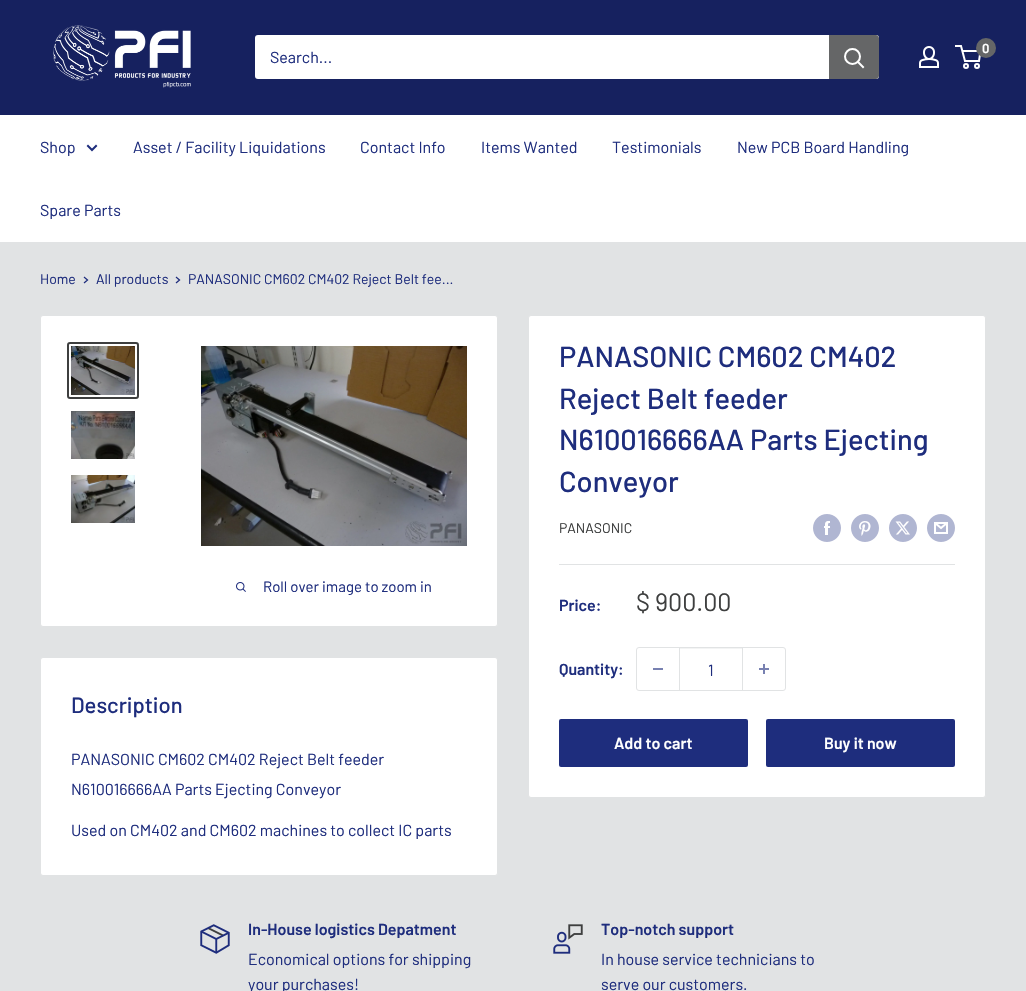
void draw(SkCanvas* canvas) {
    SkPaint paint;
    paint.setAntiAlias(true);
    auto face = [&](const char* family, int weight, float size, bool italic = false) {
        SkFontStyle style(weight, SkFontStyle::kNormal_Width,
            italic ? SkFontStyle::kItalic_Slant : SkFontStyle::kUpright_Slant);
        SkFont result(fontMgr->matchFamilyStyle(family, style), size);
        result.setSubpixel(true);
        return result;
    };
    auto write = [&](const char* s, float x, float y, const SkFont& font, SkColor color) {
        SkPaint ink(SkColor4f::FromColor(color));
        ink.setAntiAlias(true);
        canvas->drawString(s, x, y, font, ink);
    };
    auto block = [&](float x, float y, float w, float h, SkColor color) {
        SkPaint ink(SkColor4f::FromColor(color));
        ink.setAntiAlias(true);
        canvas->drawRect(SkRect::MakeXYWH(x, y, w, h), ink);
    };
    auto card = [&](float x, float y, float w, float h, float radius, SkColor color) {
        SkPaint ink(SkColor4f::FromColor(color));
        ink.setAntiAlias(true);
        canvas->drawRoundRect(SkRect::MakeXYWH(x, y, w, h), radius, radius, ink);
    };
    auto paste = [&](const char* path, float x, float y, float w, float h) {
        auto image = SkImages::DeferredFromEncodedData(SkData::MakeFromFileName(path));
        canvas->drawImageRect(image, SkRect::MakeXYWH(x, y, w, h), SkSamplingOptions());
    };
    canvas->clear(SkColorSetRGB(225, 227, 228));
    block(0, 0, 1026, 115, SkColorSetRGB(22, 33, 95));
    paste("pic1.png", 53, 25, 138, 63);
    paste("pic2.png", 919, 46, 20, 22);
    paint.setStyle(SkPaint::kStroke_Style);
    paint.setStrokeWidth(2);
    paint.setColor(SK_ColorWHITE);
    canvas->drawCircle(966, 66, 2, paint);
    canvas->drawCircle(977, 66, 2, paint);
    canvas->drawPath(SkPathBuilder().moveTo(962.5f, 51).lineTo(980.5f, 51).lineTo(979, 61).lineTo(965, 61).lineTo(961, 46).lineTo(955, 46).detach(), paint);
    paint.setStyle(SkPaint::kFill_Style);
    paint.setColor(SkColorSetRGB(101, 102, 103));
    canvas->drawCircle(986, 48, 10, paint);
    auto kFont1 = face("Barlow", 600, 13);
    write("0", 982, 53, kFont1, SK_ColorWHITE);
    card(255, 35, 624, 44, 3, SK_ColorWHITE);
    auto kFont2 = face("Barlow", 400, 16);
    write("Search...", 270, 63, kFont2, SkColorSetRGB(30, 45, 125));
    canvas->drawPath(SkPathBuilder().moveTo(829, 35).lineTo(876, 35).cubicTo(877.5f, 35, 879, 36.5f, 879, 38).lineTo(879, 76).cubicTo(879, 77.5f, 877.5f, 79, 876, 79).lineTo(829, 79).close().detach(), paint);
    paint.setStyle(SkPaint::kStroke_Style);
    paint.setStrokeCap(SkPaint::kSquare_Cap);
    paint.setColor(SK_ColorWHITE);
    canvas->drawPath(SkPathBuilder().moveTo(863, 67).lineTo(858, 62).detach(), paint);
    paint.setStrokeCap(SkPaint::kButt_Cap);
    canvas->drawCircle(852.5f, 56.5f, 7.5f, paint);
    block(0, 115, 1026, 127, SK_ColorWHITE);
    write("Shop", 40, 153, kFont2, SkColorSetRGB(30, 45, 125));
    paint.setStrokeCap(SkPaint::kSquare_Cap);
    paint.setColor(SkColorSetRGB(30, 45, 125));
    canvas->drawPath(SkPathBuilder().moveTo(96, 146).lineTo(92, 150).lineTo(88, 146).detach(), paint);
    write("Asset / Facility Liquidations", 133, 153, kFont2, SkColorSetRGB(30, 45, 125));
    write("Contact Info", 360, 153, kFont2, SkColorSetRGB(30, 45, 125));
    write("Items Wanted", 481, 153, kFont2, SkColorSetRGB(30, 45, 125));
    write("Testimonials", 612, 153, kFont2, SkColorSetRGB(30, 45, 125));
    write("New PCB Board Handling", 737, 153, kFont2, SkColorSetRGB(30, 45, 125));
    write("Spare Parts", 40, 216, kFont2, SkColorSetRGB(30, 45, 125));
    auto kFont3 = face("Barlow", 400, 14);
    write("Home", 40, 284, kFont3, SkColorSetRGB(30, 45, 125));
    paint.setStrokeWidth(1.3f);
    canvas->drawPath(SkPathBuilder().moveTo(84.5f, 277.5f).lineTo(87.5f, 280).lineTo(84.5f, 282.5f).detach(), paint);
    write("All products", 96, 284, kFont3, SkColorSetRGB(30, 45, 125));
    canvas->drawPath(SkPathBuilder().moveTo(176.5f, 277.5f).lineTo(179.5f, 280).lineTo(176.5f, 282.5f).detach(), paint);
    write("PANASONIC CM602 CM402 Reject Belt fee...", 188, 284, kFont3, SkColorSetRGB(30, 45, 125));
    paint.setStyle(SkPaint::kFill_Style);
    paint.setColor(SK_ColorWHITE);
    canvas->drawRoundRect(SkRect::MakeXYWH(40.5f, 315.5f, 457, 311), 2.5f, 2.5f, paint);
    paint.setStyle(SkPaint::kStroke_Style);
    paint.setStrokeWidth(1);
    paint.setStrokeCap(SkPaint::kButt_Cap);
    paint.setColor(SkColorSetRGB(225, 227, 228));
    canvas->drawRoundRect(SkRect::MakeXYWH(40.5f, 315.5f, 457, 311), 2.5f, 2.5f, paint);
    paint.setStrokeWidth(2);
    paint.setColor(SkColorSetRGB(62, 63, 63));
    canvas->drawRoundRect(SkRect::MakeXYWH(68, 343, 70, 55), 2, 2, paint);
    paste("pic3.png", 71, 346, 64, 49);
    paste("pic4.png", 71, 411, 64, 48);
    paste("pic5.png", 71, 475, 64, 48);
    paste("pic6.png", 201, 346, 266, 200);
    paste("pic7.png", 236, 582, 10, 10);
    auto kFont4 = face("Barlow", 400, 15);
    write("Roll over image to zoom in", 263, 592, kFont4, SkColorSetRGB(30, 45, 125));
    paint.setStyle(SkPaint::kFill_Style);
    paint.setColor(SK_ColorWHITE);
    canvas->drawRoundRect(SkRect::MakeXYWH(528.5f, 315.5f, 457, 482), 2.5f, 2.5f, paint);
    paint.setStyle(SkPaint::kStroke_Style);
    paint.setStrokeWidth(1);
    paint.setColor(SkColorSetRGB(225, 227, 228));
    canvas->drawRoundRect(SkRect::MakeXYWH(528.5f, 315.5f, 457, 482), 2.5f, 2.5f, paint);
    auto kFont5 = face("Barlow", 500, 29);
    write("PANASONIC CM602 CM402", 559, 367, kFont5, SkColorSetRGB(30, 45, 125));
    write("Reject Belt feeder", 559, 409, kFont5, SkColorSetRGB(30, 45, 125));
    write("N610016666AA Parts Ejecting", 559, 450, kFont5, SkColorSetRGB(30, 45, 125));
    write("Conveyor", 559, 492, kFont5, SkColorSetRGB(30, 45, 125));
    write("PANASONIC", 559, 533, kFont3, SkColorSetRGB(62, 63, 63));
    paste("pic8.png", 813, 514, 28, 28);
    paste("pic9.png", 851, 514, 28, 28);
    paste("pic10.png", 889, 514, 28, 28);
    paste("pic11.png", 927, 514, 28, 28);
    block(559, 564, 396, 1, SkColorSetRGB(225, 227, 228));
    auto kFont6 = face("Barlow", 600, 16);
    write("Price:", 559, 611, kFont6, SkColorSetRGB(30, 45, 125));
    auto kFont7 = face("Barlow", 400, 25);
    write("$ 900.00", 636, 611, kFont7, SkColorSetRGB(62, 63, 63));
    write("Quantity:", 559, 675, kFont6, SkColorSetRGB(30, 45, 125));
    canvas->drawRoundRect(SkRect::MakeXYWH(636.5f, 647.5f, 149, 43), 2.5f, 2.5f, paint);
    block(653, 668, 10, 2, SkColorSetRGB(120, 129, 177));
    block(680, 648, 62, 1, SkColorSetRGB(243, 244, 244));
    block(742, 648, 1, 42, SkColorSetRGB(225, 227, 228));
    block(679, 648, 1, 42, SkColorSetRGB(225, 227, 228));
    write("1", 708, 676, kFont2, SkColorSetRGB(30, 45, 125));
    paste("pic12.png", 759, 664, 10, 10);
    card(559, 719, 189, 48, 2, SkColorSetRGB(30, 45, 125));
    write("Add to cart", 614, 749, kFont6, SK_ColorWHITE);
    card(766, 719, 189, 48, 2, SkColorSetRGB(30, 45, 125));
    write("Buy it now", 824, 749, kFont6, SK_ColorWHITE);
    paint.setStyle(SkPaint::kFill_Style);
    paint.setColor(SK_ColorWHITE);
    canvas->drawRoundRect(SkRect::MakeXYWH(40.5f, 657.5f, 457, 218), 2.5f, 2.5f, paint);
    paint.setStyle(SkPaint::kStroke_Style);
    paint.setColor(SkColorSetRGB(225, 227, 228));
    canvas->drawRoundRect(SkRect::MakeXYWH(40.5f, 657.5f, 457, 218), 2.5f, 2.5f, paint);
    auto kFont8 = face("Barlow", 500, 22);
    write("Description", 71, 713, kFont8, SkColorSetRGB(30, 45, 125));
    write("PANASONIC CM602 CM402 Reject Belt feeder", 71, 765, kFont2, SkColorSetRGB(30, 45, 125));
    write("N610016666AA Parts Ejecting Conveyor", 71, 795, kFont2, SkColorSetRGB(30, 45, 125));
    write("Used on CM402 and CM602 machines to collect IC parts", 71, 836, kFont2, SkColorSetRGB(30, 45, 125));
    paste("pic13.png", 200, 924, 30, 30);
    write("In-House logistics Depatment", 248, 935, kFont6, SkColorSetRGB(30, 45, 125));
    write("Economical options for shipping", 248, 965, kFont2, SkColorSetRGB(30, 45, 125));
    write("your purchases!", 248, 990, kFont2, SkColorSetRGB(30, 45, 125));
    paste("pic14.png", 553, 924, 30, 30);
    write("Top-notch support", 601, 935, kFont6, SkColorSetRGB(30, 45, 125));
    write("In house service technicians to", 601, 965, kFont2, SkColorSetRGB(30, 45, 125));
    write("serve our customers.", 601, 990, kFont2, SkColorSetRGB(30, 45, 125));
}
